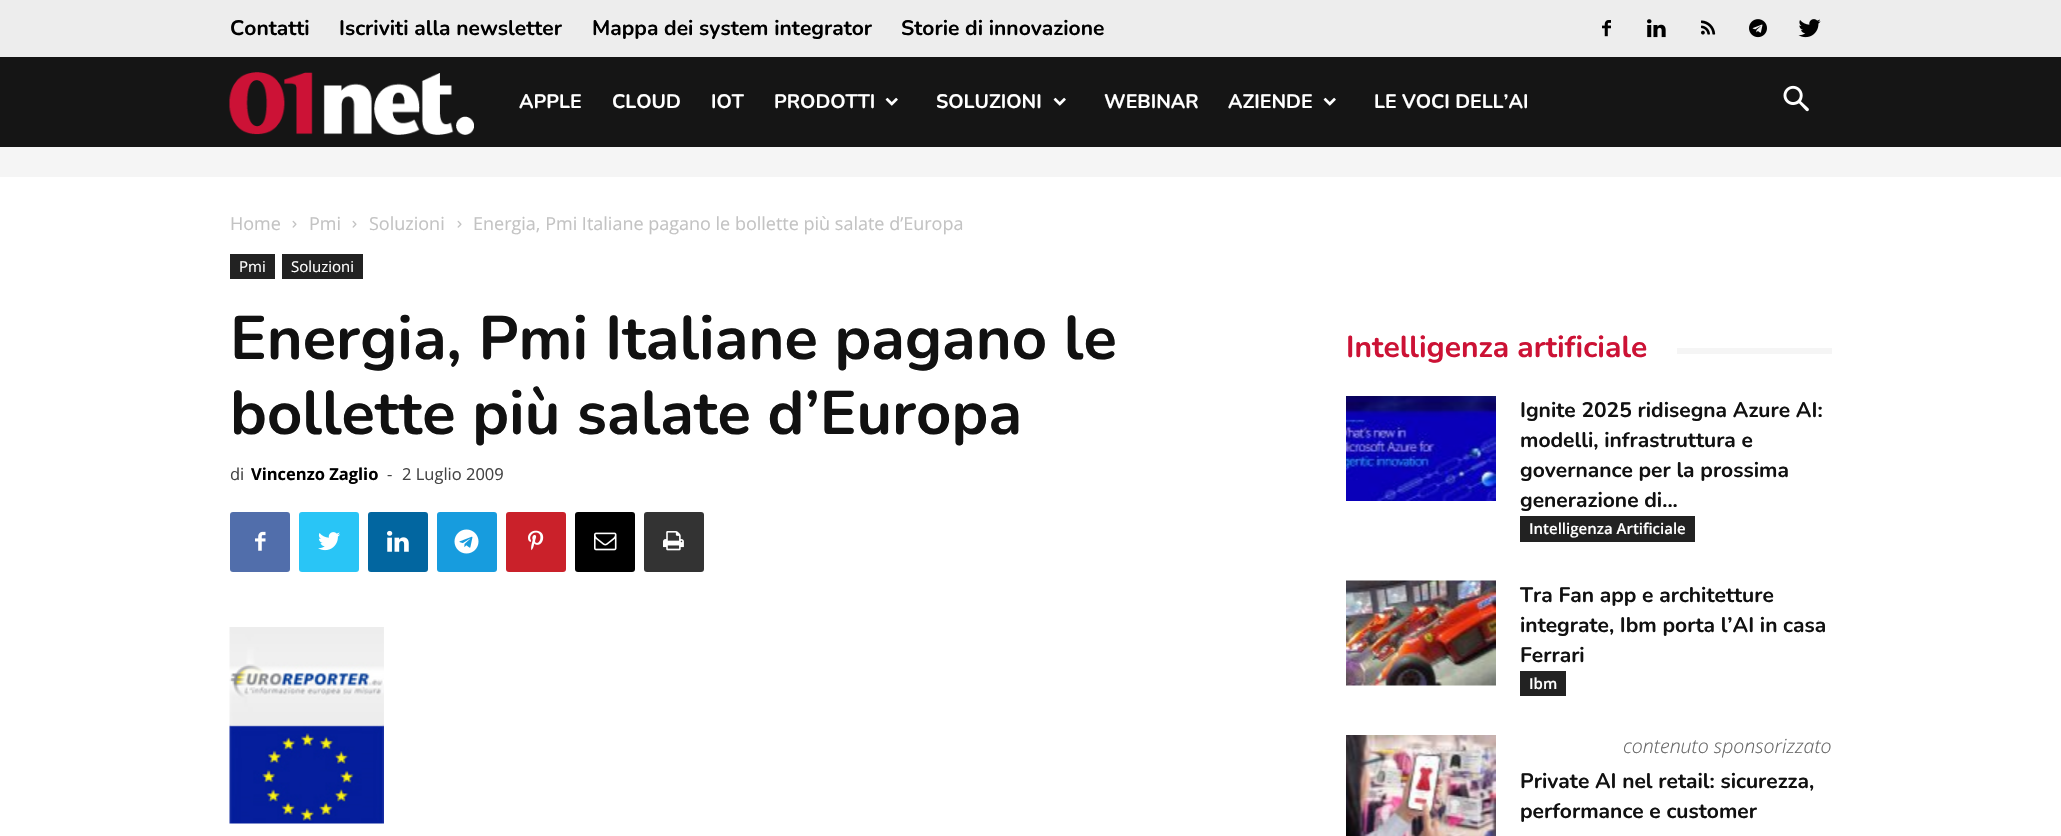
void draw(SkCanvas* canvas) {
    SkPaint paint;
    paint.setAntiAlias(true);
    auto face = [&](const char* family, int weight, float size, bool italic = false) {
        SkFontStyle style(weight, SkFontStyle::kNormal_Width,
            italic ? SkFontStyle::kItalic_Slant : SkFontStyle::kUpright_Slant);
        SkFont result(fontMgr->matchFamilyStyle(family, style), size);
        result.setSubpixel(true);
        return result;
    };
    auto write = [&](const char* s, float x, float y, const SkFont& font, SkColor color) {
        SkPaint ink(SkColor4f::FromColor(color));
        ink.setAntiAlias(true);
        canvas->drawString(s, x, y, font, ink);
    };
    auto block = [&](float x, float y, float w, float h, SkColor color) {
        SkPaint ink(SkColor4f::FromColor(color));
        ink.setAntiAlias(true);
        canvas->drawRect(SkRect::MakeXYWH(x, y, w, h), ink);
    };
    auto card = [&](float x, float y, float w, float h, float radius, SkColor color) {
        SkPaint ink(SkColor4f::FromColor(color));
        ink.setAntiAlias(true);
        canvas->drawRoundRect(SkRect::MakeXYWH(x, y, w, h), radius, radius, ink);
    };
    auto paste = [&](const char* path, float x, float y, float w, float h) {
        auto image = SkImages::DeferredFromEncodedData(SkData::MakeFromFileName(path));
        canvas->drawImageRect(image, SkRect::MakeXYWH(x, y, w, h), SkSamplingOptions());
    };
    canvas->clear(SK_ColorWHITE);
    block(0, 0, 2061, 57, SkColorSetRGB(237, 237, 237));
    auto kFont1 = face("Nunito", 200, 21);
    write("Contatti", 230, 35, kFont1, SK_ColorBLACK);
    write("Iscriviti alla newsletter", 339, 35, kFont1, SK_ColorBLACK);
    write("Mappa dei system integrator", 592, 35, kFont1, SK_ColorBLACK);
    write("Storie di innovazione", 901, 35, kFont1, SK_ColorBLACK);
    paste("pic1.png", 1602, 20, 9, 17);
    paste("pic2.png", 1647, 19, 19, 19);
    paste("pic3.png", 1701, 20, 15, 15);
    paste("pic4.png", 1749, 19, 18, 19);
    paste("pic5.png", 1798, 19, 23, 19);
    block(0, 57, 2061, 90, SkColorSetRGB(21, 21, 21));
    paste("pic6.png", 229, 72, 245, 63);
    auto kFont2 = face("Nunito", 200, 19.5f);
    write("APPLE", 519, 108, kFont2, SK_ColorWHITE);
    write("CLOUD", 612, 108, kFont2, SK_ColorWHITE);
    write("IOT", 711, 108, kFont2, SK_ColorWHITE);
    write("PRODOTTI", 774, 108, kFont2, SK_ColorWHITE);
    paste("pic7.png", 885, 97, 13, 9);
    write("SOLUZIONI", 936, 108, kFont2, SK_ColorWHITE);
    paste("pic7.png", 1053, 97, 13, 9);
    write("WEBINAR", 1104, 108, kFont2, SK_ColorWHITE);
    write("AZIENDE", 1228, 108, kFont2, SK_ColorWHITE);
    paste("pic7.png", 1323, 97, 13, 9);
    write("LE VOCI DELL’AI", 1374, 108, kFont2, SK_ColorWHITE);
    paste("pic8.png", 1783, 85, 26, 27);
    block(0, 147, 2061, 30, SkColorSetRGB(245, 245, 245));
    auto kFont3 = face("Open Sans", 400, 18);
    write("Home", 230, 230, kFont3, SkColorSetRGB(195, 195, 195));
    paste("pic9.png", 292, 220, 5, 8);
    write("Pmi", 309, 230, kFont3, SkColorSetRGB(195, 195, 195));
    paste("pic9.png", 352, 220, 5, 8);
    write("Soluzioni", 369, 230, kFont3, SkColorSetRGB(195, 195, 195));
    paste("pic9.png", 457, 220, 5, 8);
    write("Energia, Pmi Italiane pagano le bollette più salate d’Europa", 473, 230, kFont3, SkColorSetRGB(195, 195, 195));
    block(230, 254, 45, 25, SkColorSetRGB(34, 34, 34));
    auto kFont4 = face("Open Sans", 400, 15);
    write("Pmi", 239, 272, kFont4, SK_ColorWHITE);
    block(282, 254, 81, 25, SkColorSetRGB(34, 34, 34));
    write("Soluzioni", 291, 272, kFont4, SK_ColorWHITE);
    auto kFont5 = face("Nunito", 200, 61.5f);
    write("Energia, Pmi Italiane pagano le", 230, 359, kFont5, SkColorSetRGB(17, 17, 17));
    write("bollette più salate d’Europa", 230, 434, kFont5, SkColorSetRGB(17, 17, 17));
    auto kFont6 = face("Open Sans", 400, 16.5f);
    write("di", 230, 480, kFont6, SkColorSetRGB(68, 68, 68));
    auto kFont7 = face("Open Sans", 700, 16.5f);
    write("Vincenzo Zaglio", 251, 480, kFont7, SK_ColorBLACK);
    write("-", 387, 480, kFont6, SkColorSetRGB(68, 68, 68));
    write("2 Luglio 2009", 402, 480, kFont6, SkColorSetRGB(68, 68, 68));
    card(230, 512, 60, 60, 3, SkColorSetRGB(81, 110, 171));
    paste("pic10.png", 255, 531, 11, 20);
    card(299, 512, 60, 60, 3, SkColorSetRGB(41, 197, 246));
    paste("pic11.png", 318, 532, 22, 19);
    card(368, 512, 60, 60, 3, SkColorSetRGB(2, 102, 160));
    paste("pic12.png", 387, 530, 22, 22);
    card(437, 512, 60, 60, 3, SkColorSetRGB(23, 156, 222));
    paste("pic13.png", 454, 529, 25, 25);
    card(506, 512, 60, 60, 3, SkColorSetRGB(202, 33, 42));
    paste("pic14.png", 528, 530, 16, 21);
    card(575, 512, 60, 60, 3, SK_ColorBLACK);
    paste("pic15.png", 594, 532, 23, 19);
    card(644, 512, 60, 60, 3, SkColorSetRGB(51, 51, 51));
    paste("pic16.png", 663, 531, 21, 20);
    paste("pic17.png", 229, 627, 155, 197);
    auto kFont8 = face("Nunito", 200, 30);
    write("Intelligenza artificiale", 1346, 357, kFont8, SkColorSetRGB(204, 18, 53));
    block(1677, 348, 155, 6, SkColorSetRGB(245, 245, 245));
    paste("pic18.png", 1346, 396, 150, 105);
    write("Ignite 2025 ridisegna Azure AI:", 1520, 417, kFont1, SkColorSetRGB(17, 17, 17));
    write("modelli, infrastruttura e", 1520, 447, kFont1, SkColorSetRGB(17, 17, 17));
    write("governance per la prossima", 1520, 477, kFont1, SkColorSetRGB(17, 17, 17));
    write("generazione di...", 1520, 507, kFont1, SkColorSetRGB(17, 17, 17));
    block(1520, 516, 175, 26, SkColorSetRGB(34, 34, 34));
    auto kFont9 = face("Open Sans", 600, 15);
    write("Intelligenza Artificiale", 1529, 534, kFont9, SK_ColorWHITE);
    paste("pic19.png", 1346, 580, 150, 106);
    write("Tra Fan app e architetture", 1520, 602, kFont1, SkColorSetRGB(17, 17, 17));
    write("integrate, Ibm porta l’AI in casa", 1520, 632, kFont1, SkColorSetRGB(17, 17, 17));
    write("Ferrari", 1520, 662, kFont1, SkColorSetRGB(17, 17, 17));
    block(1520, 671, 46, 25, SkColorSetRGB(34, 34, 34));
    write("Ibm", 1529, 689, kFont9, SK_ColorWHITE);
    paste("pic20.png", 1346, 735, 150, 101);
    auto kFont10 = face("Open Sans", 300, 19.5f, true);
    write("contenuto sponsorizzato", 1623, 753, kFont10, SkColorSetRGB(102, 102, 102));
    write("Private AI nel retail: sicurezza,", 1520, 788, kFont1, SkColorSetRGB(17, 17, 17));
    write("performance e customer", 1520, 818, kFont1, SkColorSetRGB(17, 17, 17));
}
